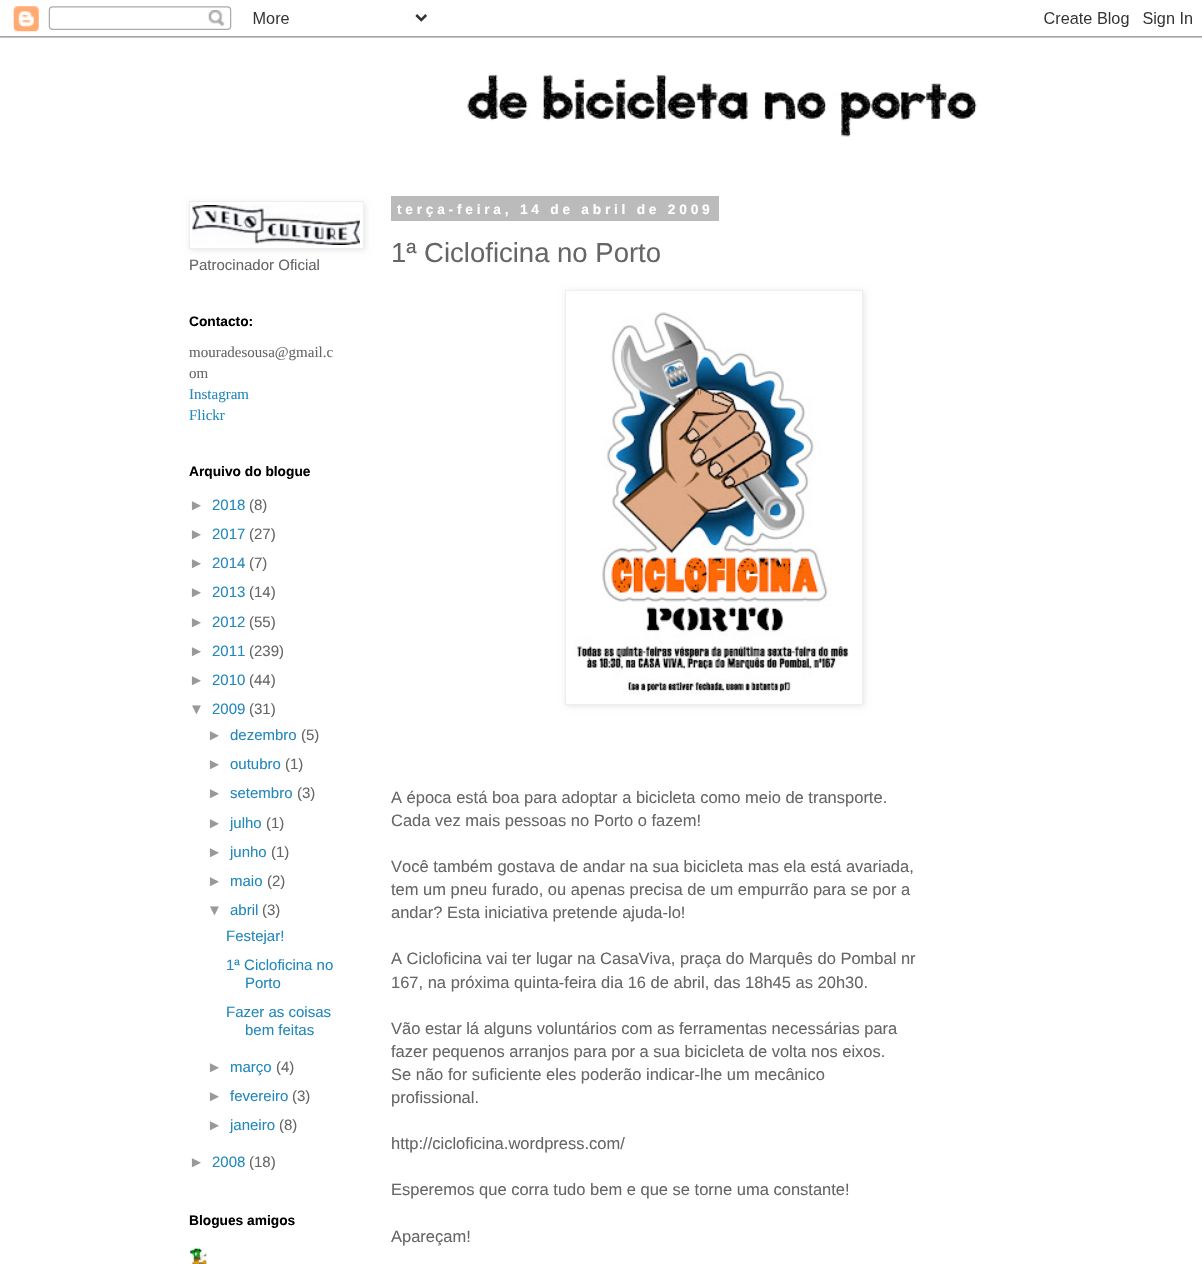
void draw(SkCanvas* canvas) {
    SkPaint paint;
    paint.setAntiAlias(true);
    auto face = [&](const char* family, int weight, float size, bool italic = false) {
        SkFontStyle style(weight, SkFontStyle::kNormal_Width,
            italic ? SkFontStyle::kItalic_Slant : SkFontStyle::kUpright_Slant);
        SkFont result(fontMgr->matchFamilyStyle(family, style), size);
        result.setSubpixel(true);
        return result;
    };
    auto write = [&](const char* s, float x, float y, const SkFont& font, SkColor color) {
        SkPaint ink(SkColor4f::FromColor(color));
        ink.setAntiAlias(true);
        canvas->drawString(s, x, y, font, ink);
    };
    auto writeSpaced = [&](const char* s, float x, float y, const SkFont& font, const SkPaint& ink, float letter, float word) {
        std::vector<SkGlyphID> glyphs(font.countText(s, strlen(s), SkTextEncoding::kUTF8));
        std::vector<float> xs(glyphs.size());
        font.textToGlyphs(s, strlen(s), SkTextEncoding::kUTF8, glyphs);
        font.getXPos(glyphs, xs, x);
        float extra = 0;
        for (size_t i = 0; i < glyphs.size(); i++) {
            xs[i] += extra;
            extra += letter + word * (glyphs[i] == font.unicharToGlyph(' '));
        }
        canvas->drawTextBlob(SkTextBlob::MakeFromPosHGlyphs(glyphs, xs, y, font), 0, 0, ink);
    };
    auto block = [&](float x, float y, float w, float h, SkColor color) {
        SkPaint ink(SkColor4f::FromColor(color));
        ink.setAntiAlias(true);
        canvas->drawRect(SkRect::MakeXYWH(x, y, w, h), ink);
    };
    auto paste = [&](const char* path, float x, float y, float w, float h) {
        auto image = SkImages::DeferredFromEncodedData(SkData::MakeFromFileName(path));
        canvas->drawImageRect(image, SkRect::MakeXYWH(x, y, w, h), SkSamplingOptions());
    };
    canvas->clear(SK_ColorWHITE);
    paste("pic1.png", 0, 6, 1202, 32);
    paste("pic2.png", 467, 74, 510, 63);
    paint.setColor(SkColorSetARGB(26, 0, 0, 0));
    paint.setMaskFilter(SkMaskFilter::MakeBlur(kNormal_SkBlurStyle, 3));
    canvas->drawRect(SkRect::MakeXYWH(190, 203, 175, 47), paint);
    paint.setMaskFilter(nullptr);
    paint.setColor(SK_ColorWHITE);
    canvas->drawRect(SkRect::MakeXYWH(189.5f, 201.5f, 174, 47), paint);
    paint.setStyle(SkPaint::kStroke_Style);
    paint.setStrokeWidth(1);
    paint.setColor(SkColorSetRGB(238, 238, 238));
    canvas->drawRect(SkRect::MakeXYWH(189.5f, 201.5f, 174, 47), paint);
    paste("pic3.png", 192, 205, 168, 40);
    auto kFont1 = face("Liberation Sans", 400, 15);
    write("Patrocinador Oficial", 189, 270, kFont1, SkColorSetRGB(102, 102, 102));
    auto kFont2 = face("Liberation Sans", 700, 13.75f);
    write("Contacto:", 189, 326, kFont2, SK_ColorBLACK);
    auto kFont3 = face("Liberation Serif", 400, 15);
    write("mouradesousa@gmail.c", 189, 357, kFont3, SkColorSetRGB(102, 102, 102));
    write("om", 189, 378, kFont3, SkColorSetRGB(102, 102, 102));
    write("Instagram", 189, 399, kFont3, SkColorSetRGB(34, 136, 187));
    write("Flickr", 189, 420, kFont3, SkColorSetRGB(34, 136, 187));
    write("Arquivo do blogue", 189, 476, kFont2, SK_ColorBLACK);
    write("►", 189, 510, kFont1, SkColorSetRGB(153, 153, 153));
    write("2018", 212, 510, kFont1, SkColorSetRGB(34, 136, 187));
    write("(8)", 249, 510, kFont1, SkColorSetRGB(102, 102, 102));
    write("►", 189, 539, kFont1, SkColorSetRGB(153, 153, 153));
    write("2017", 212, 539, kFont1, SkColorSetRGB(34, 136, 187));
    write("(27)", 249, 539, kFont1, SkColorSetRGB(102, 102, 102));
    write("►", 189, 568, kFont1, SkColorSetRGB(153, 153, 153));
    write("2014", 212, 568, kFont1, SkColorSetRGB(34, 136, 187));
    write("(7)", 249, 568, kFont1, SkColorSetRGB(102, 102, 102));
    write("►", 189, 597, kFont1, SkColorSetRGB(153, 153, 153));
    write("2013", 212, 597, kFont1, SkColorSetRGB(34, 136, 187));
    write("(14)", 249, 597, kFont1, SkColorSetRGB(102, 102, 102));
    write("►", 189, 627, kFont1, SkColorSetRGB(153, 153, 153));
    write("2012", 212, 627, kFont1, SkColorSetRGB(34, 136, 187));
    write("(55)", 249, 627, kFont1, SkColorSetRGB(102, 102, 102));
    write("►", 189, 656, kFont1, SkColorSetRGB(153, 153, 153));
    write("2011", 212, 656, kFont1, SkColorSetRGB(34, 136, 187));
    write("(239)", 249, 656, kFont1, SkColorSetRGB(102, 102, 102));
    write("►", 189, 685, kFont1, SkColorSetRGB(153, 153, 153));
    write("2010", 212, 685, kFont1, SkColorSetRGB(34, 136, 187));
    write("(44)", 249, 685, kFont1, SkColorSetRGB(102, 102, 102));
    write("▼", 189, 714, kFont1, SkColorSetRGB(153, 153, 153));
    write("2009", 212, 714, kFont1, SkColorSetRGB(34, 136, 187));
    write("(31)", 249, 714, kFont1, SkColorSetRGB(102, 102, 102));
    write("►", 207, 740, kFont1, SkColorSetRGB(153, 153, 153));
    write("dezembro", 230, 740, kFont1, SkColorSetRGB(34, 136, 187));
    write("(5)", 301, 740, kFont1, SkColorSetRGB(102, 102, 102));
    write("►", 207, 769, kFont1, SkColorSetRGB(153, 153, 153));
    write("outubro", 230, 769, kFont1, SkColorSetRGB(34, 136, 187));
    write("(1)", 285, 769, kFont1, SkColorSetRGB(102, 102, 102));
    write("►", 207, 798, kFont1, SkColorSetRGB(153, 153, 153));
    write("setembro", 230, 798, kFont1, SkColorSetRGB(34, 136, 187));
    write("(3)", 297, 798, kFont1, SkColorSetRGB(102, 102, 102));
    write("►", 207, 828, kFont1, SkColorSetRGB(153, 153, 153));
    write("julho", 230, 828, kFont1, SkColorSetRGB(34, 136, 187));
    write("(1)", 266, 828, kFont1, SkColorSetRGB(102, 102, 102));
    write("►", 207, 857, kFont1, SkColorSetRGB(153, 153, 153));
    write("junho", 230, 857, kFont1, SkColorSetRGB(34, 136, 187));
    write("(1)", 271, 857, kFont1, SkColorSetRGB(102, 102, 102));
    write("►", 207, 886, kFont1, SkColorSetRGB(153, 153, 153));
    write("maio", 230, 886, kFont1, SkColorSetRGB(34, 136, 187));
    write("(2)", 267, 886, kFont1, SkColorSetRGB(102, 102, 102));
    write("▼", 207, 915, kFont1, SkColorSetRGB(153, 153, 153));
    write("abril", 230, 915, kFont1, SkColorSetRGB(34, 136, 187));
    write("(3)", 262, 915, kFont1, SkColorSetRGB(102, 102, 102));
    write("Festejar!", 226, 941, kFont1, SkColorSetRGB(34, 136, 187));
    write("1ª Cicloficina no", 226, 970, kFont1, SkColorSetRGB(34, 136, 187));
    write("Porto", 245, 988, kFont1, SkColorSetRGB(34, 136, 187));
    write("Fazer as coisas", 226, 1017, kFont1, SkColorSetRGB(34, 136, 187));
    write("bem feitas", 245, 1035, kFont1, SkColorSetRGB(34, 136, 187));
    write("►", 207, 1072, kFont1, SkColorSetRGB(153, 153, 153));
    write("março", 230, 1072, kFont1, SkColorSetRGB(34, 136, 187));
    write("(4)", 276, 1072, kFont1, SkColorSetRGB(102, 102, 102));
    write("►", 207, 1101, kFont1, SkColorSetRGB(153, 153, 153));
    write("fevereiro", 230, 1101, kFont1, SkColorSetRGB(34, 136, 187));
    write("(3)", 292, 1101, kFont1, SkColorSetRGB(102, 102, 102));
    write("►", 207, 1130, kFont1, SkColorSetRGB(153, 153, 153));
    write("janeiro", 230, 1130, kFont1, SkColorSetRGB(34, 136, 187));
    write("(8)", 279, 1130, kFont1, SkColorSetRGB(102, 102, 102));
    write("►", 189, 1167, kFont1, SkColorSetRGB(153, 153, 153));
    write("2008", 212, 1167, kFont1, SkColorSetRGB(34, 136, 187));
    write("(18)", 249, 1167, kFont1, SkColorSetRGB(102, 102, 102));
    write("Blogues amigos", 189, 1225, kFont2, SK_ColorBLACK);
    paste("pic4.png", 189, 1247, 18, 17);
    block(391, 196, 328, 25, SkColorSetRGB(187, 187, 187));
    paint.setStyle(SkPaint::kFill_Style);
    paint.setColor(SK_ColorWHITE);
    writeSpaced("terça-feira, 14 de abril de 2009", 397, 214, kFont2, paint, 3.75f, 0);
    auto kFont4 = face("Liberation Sans", 400, 27.5f);
    write("1ª Cicloficina no Porto", 391, 262, kFont4, SkColorSetRGB(102, 102, 102));
    paint.setColor(SkColorSetARGB(26, 0, 0, 0));
    paint.setMaskFilter(SkMaskFilter::MakeBlur(kNormal_SkBlurStyle, 3));
    canvas->drawRect(SkRect::MakeXYWH(566, 291, 298, 415), paint);
    paint.setMaskFilter(nullptr);
    paint.setColor(SK_ColorWHITE);
    canvas->drawRect(SkRect::MakeXYWH(565.5f, 290.5f, 297, 414), paint);
    paint.setStyle(SkPaint::kStroke_Style);
    paint.setColor(SkColorSetRGB(238, 238, 238));
    canvas->drawRect(SkRect::MakeXYWH(565.5f, 290.5f, 297, 414), paint);
    paste("pic5.png", 573, 312, 276, 383);
    auto kFont5 = face("Liberation Sans", 400, 16.5f);
    write("A época está boa para adoptar a bicicleta como meio de transporte.", 391, 803, kFont5, SkColorSetRGB(102, 102, 102));
    write("Cada vez mais pessoas no Porto o fazem!", 391, 826, kFont5, SkColorSetRGB(102, 102, 102));
    write("Você também gostava de andar na sua bicicleta mas ela está avariada,", 391, 872, kFont5, SkColorSetRGB(102, 102, 102));
    write("tem um pneu furado, ou apenas precisa de um empurrão para se por a", 391, 895, kFont5, SkColorSetRGB(102, 102, 102));
    write("andar? Esta iniciativa pretende ajuda-lo!", 391, 918, kFont5, SkColorSetRGB(102, 102, 102));
    write("A Cicloficina vai ter lugar na CasaViva, praça do Marquês do Pombal nr", 391, 964, kFont5, SkColorSetRGB(102, 102, 102));
    write("167, na próxima quinta-feira dia 16 de abril, das 18h45 as 20h30.", 391, 988, kFont5, SkColorSetRGB(102, 102, 102));
    write("Vão estar lá alguns voluntários com as ferramentas necessárias para", 391, 1034, kFont5, SkColorSetRGB(102, 102, 102));
    write("fazer pequenos arranjos para por a sua bicicleta de volta nos eixos.", 391, 1057, kFont5, SkColorSetRGB(102, 102, 102));
    write("Se não for suficiente eles poderão indicar-lhe um mecânico", 391, 1080, kFont5, SkColorSetRGB(102, 102, 102));
    write("profissional.", 391, 1103, kFont5, SkColorSetRGB(102, 102, 102));
    write("http://cicloficina.wordpress.com/", 391, 1149, kFont5, SkColorSetRGB(102, 102, 102));
    write("Esperemos que corra tudo bem e que se torne uma constante!", 391, 1195, kFont5, SkColorSetRGB(102, 102, 102));
    write("Apareçam!", 391, 1242, kFont5, SkColorSetRGB(102, 102, 102));
}
